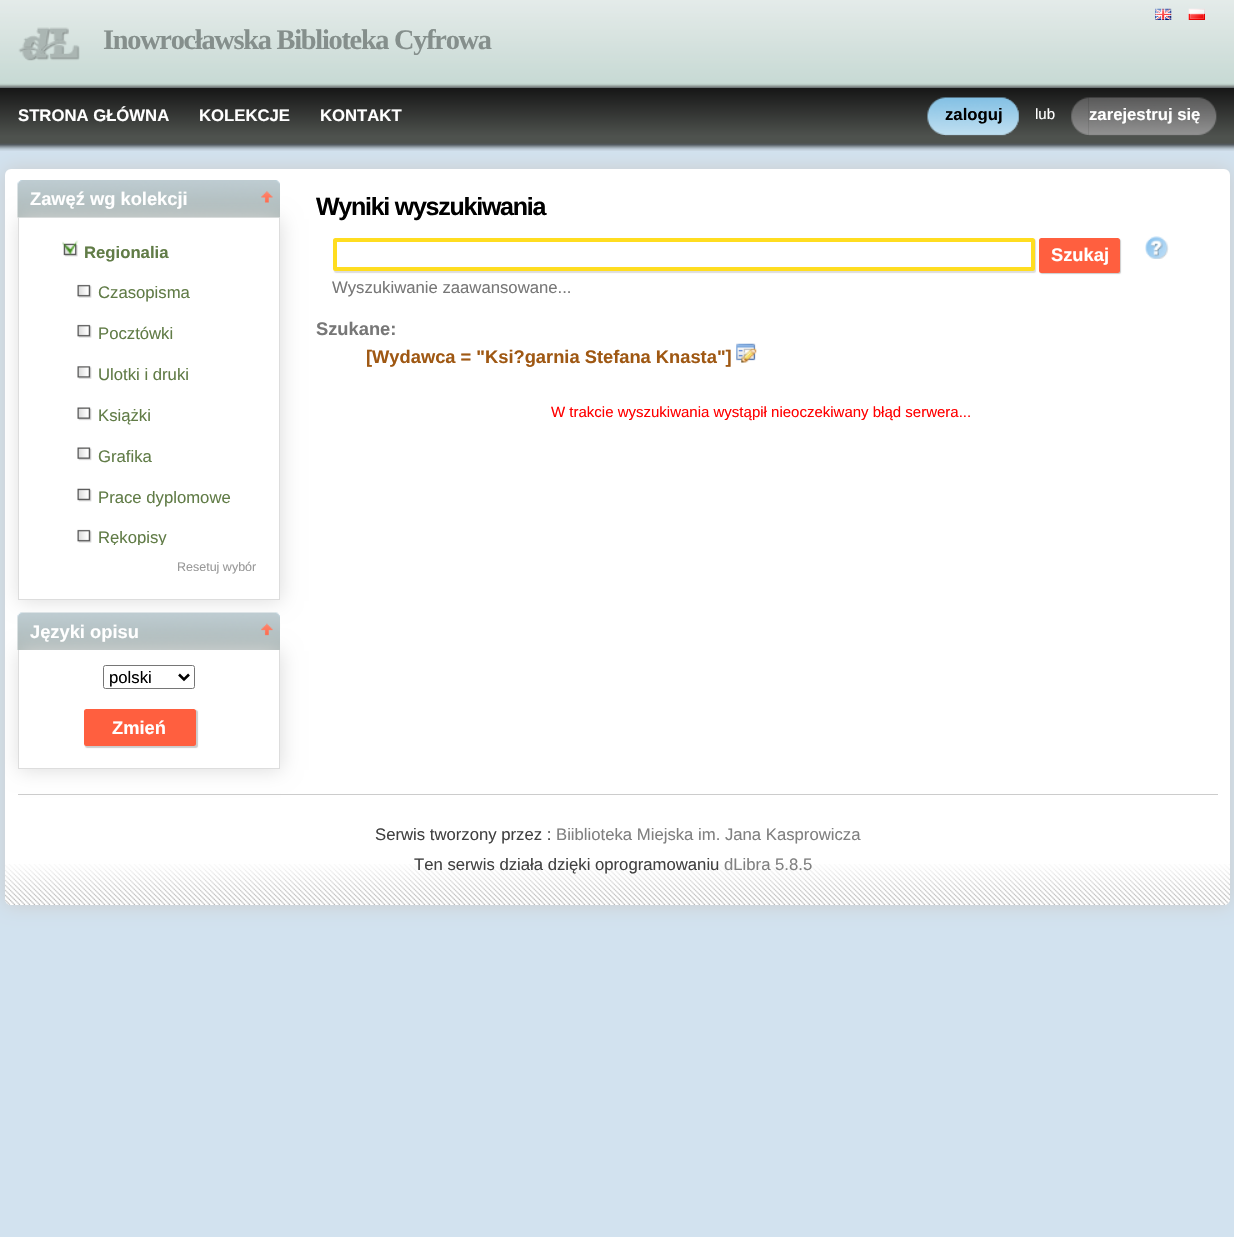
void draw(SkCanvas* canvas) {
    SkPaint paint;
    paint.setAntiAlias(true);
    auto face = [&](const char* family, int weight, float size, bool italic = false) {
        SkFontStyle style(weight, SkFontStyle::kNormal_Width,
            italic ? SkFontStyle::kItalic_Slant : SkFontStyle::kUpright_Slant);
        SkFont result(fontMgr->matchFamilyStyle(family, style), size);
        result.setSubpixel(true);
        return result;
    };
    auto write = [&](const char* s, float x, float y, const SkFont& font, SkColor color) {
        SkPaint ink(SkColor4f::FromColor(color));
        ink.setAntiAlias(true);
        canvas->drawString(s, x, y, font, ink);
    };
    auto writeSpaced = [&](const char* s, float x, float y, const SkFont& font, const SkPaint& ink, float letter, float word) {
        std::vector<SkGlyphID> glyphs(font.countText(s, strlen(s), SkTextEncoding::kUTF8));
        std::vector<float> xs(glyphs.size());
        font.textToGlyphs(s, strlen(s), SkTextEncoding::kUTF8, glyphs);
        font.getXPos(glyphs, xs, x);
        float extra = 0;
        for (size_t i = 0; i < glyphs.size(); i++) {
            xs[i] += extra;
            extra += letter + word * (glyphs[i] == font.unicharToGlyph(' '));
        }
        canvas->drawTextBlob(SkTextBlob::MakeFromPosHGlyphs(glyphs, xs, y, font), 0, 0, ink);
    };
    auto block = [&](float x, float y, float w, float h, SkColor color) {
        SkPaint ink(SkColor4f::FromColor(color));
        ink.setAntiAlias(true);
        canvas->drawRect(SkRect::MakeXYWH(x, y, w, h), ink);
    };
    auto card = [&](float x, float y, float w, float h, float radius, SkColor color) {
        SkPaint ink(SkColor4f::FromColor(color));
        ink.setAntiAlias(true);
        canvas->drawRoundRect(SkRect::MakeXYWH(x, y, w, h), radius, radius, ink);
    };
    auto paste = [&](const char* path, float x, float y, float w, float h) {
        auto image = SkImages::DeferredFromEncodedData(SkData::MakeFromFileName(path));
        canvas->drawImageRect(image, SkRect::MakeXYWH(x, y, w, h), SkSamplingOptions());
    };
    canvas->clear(SkColorSetRGB(210, 226, 239));
    paste("pic1.png", 0, 0, 1234, 88);
    paste("pic2.png", 1155, 8, 17, 12);
    paste("pic3.png", 1188, 8, 17, 12);
    paste("pic4.png", 18, 27, 62, 34);
    auto kFont1 = face("Liberation Serif", 700, 28.3f);
    paint.setColor(SkColorSetRGB(133, 143, 140));
    writeSpaced("Inowrocławska Biblioteka Cyfrowa", 103, 49, kFont1, paint, -1.25f, 0);
    paint.setColor(SkColorSetRGB(204, 204, 204));
    paint.setMaskFilter(SkMaskFilter::MakeBlur(kNormal_SkBlurStyle, 9.5f));
    canvas->drawRoundRect(SkRect::MakeXYWH(5, 169, 1225, 736), 6, 6, paint);
    paint.setMaskFilter(nullptr);
    paste("pic5.png", 0, 87, 1234, 64);
    auto kFont2 = face("Liberation Sans", 700, 16.7f);
    write("STRONA GŁÓWNA", 18, 121, kFont2, SK_ColorWHITE);
    write("KOLEKCJE", 199, 121, kFont2, SK_ColorWHITE);
    write("KONTAKT", 320, 121, kFont2, SK_ColorWHITE);
    paste("pic6.png", 945, 97, 74, 39);
    paste("pic7.png", 927, 97, 18, 38);
    write("zaloguj", 945, 120, kFont2, SK_ColorBLACK);
    auto kFont3 = face("Liberation Sans", 400, 15);
    write("lub", 1035, 119, kFont3, SK_ColorWHITE);
    paste("pic8.png", 1088, 97, 129, 39);
    paste("pic9.png", 1071, 97, 18, 38);
    write("zarejestruj się", 1089, 120, kFont2, SK_ColorWHITE);
    card(5, 169, 1225, 736, 6, SK_ColorWHITE);
    paste("pic10.png", 5, 864, 1225, 41);
    paste("pic11.png", 17, 180, 263, 38);
    canvas->save();
    canvas->clipPath(SkPathBuilder(SkPathFillType::kEvenOdd).moveTo(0, 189).lineTo(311, 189).lineTo(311, 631).lineTo(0, 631).close().moveTo(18, 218).lineTo(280, 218).lineTo(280, 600).lineTo(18, 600).close().detach(), true);
    paint.setColor(SkColorSetRGB(221, 221, 221));
    paint.setMaskFilter(SkMaskFilter::MakeBlur(kNormal_SkBlurStyle, 9.5f));
    canvas->drawRect(SkRect::MakeXYWH(19, 219, 262, 382), paint);
    paint.setMaskFilter(nullptr);
    canvas->restore();
    auto kFont4 = face("Liberation Sans", 700, 18.3f);
    write("Zawęź wg kolekcji", 30, 205, kFont4, SK_ColorWHITE);
    paste("pic12.png", 261, 191, 12, 12);
    block(279, 218, 1, 382, SkColorSetRGB(221, 221, 221));
    block(18, 599, 262, 1, SkColorSetRGB(221, 221, 221));
    block(18, 218, 1, 382, SkColorSetRGB(221, 221, 221));
    paste("pic13.png", 62, 240, 17, 17);
    write("Regionalia", 84, 258, kFont2, SkColorSetRGB(97, 124, 71));
    paste("pic14.png", 77, 284, 15, 14);
    auto kFont5 = face("Liberation Sans", 400, 16.7f);
    write("Czasopisma", 98, 298, kFont5, SkColorSetRGB(97, 124, 71));
    paste("pic15.png", 77, 324, 15, 14);
    write("Pocztówki", 98, 339, kFont5, SkColorSetRGB(97, 124, 71));
    paste("pic16.png", 77, 366, 15, 13);
    write("Ulotki i druki", 98, 380, kFont5, SkColorSetRGB(97, 124, 71));
    paste("pic17.png", 77, 407, 15, 14);
    write("Książki", 98, 421, kFont5, SkColorSetRGB(97, 124, 71));
    paste("pic17.png", 77, 447, 15, 14);
    write("Grafika", 98, 462, kFont5, SkColorSetRGB(97, 124, 71));
    paste("pic18.png", 77, 488, 15, 14);
    write("Prace dyplomowe", 98, 503, kFont5, SkColorSetRGB(97, 124, 71));
    paste("pic15.png", 77, 529, 15, 14);
    canvas->save();
    canvas->clipRect(SkRect::MakeXYWH(38, 233, 222, 312));
    write("Rękopisy", 98, 543, kFont5, SkColorSetRGB(97, 124, 71));
    canvas->restore();
    auto kFont6 = face("Liberation Sans", 400, 12.5f);
    write("Resetuj wybór", 177, 571, kFont6, SkColorSetRGB(153, 153, 153));
    paste("pic19.png", 17, 612, 263, 38);
    block(18, 794, 1200, 1, SkColorSetRGB(204, 204, 204));
    canvas->save();
    canvas->clipPath(SkPathBuilder(SkPathFillType::kEvenOdd).moveTo(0, 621).lineTo(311, 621).lineTo(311, 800).lineTo(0, 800).close().moveTo(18, 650).lineTo(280, 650).lineTo(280, 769).lineTo(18, 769).close().detach(), true);
    paint.setMaskFilter(SkMaskFilter::MakeBlur(kNormal_SkBlurStyle, 9.5f));
    canvas->drawRect(SkRect::MakeXYWH(19, 651, 262, 119), paint);
    paint.setMaskFilter(nullptr);
    canvas->restore();
    write("Języki opisu", 30, 638, kFont4, SK_ColorWHITE);
    paste("pic20.png", 261, 623, 12, 13);
    block(279, 650, 1, 119, SkColorSetRGB(221, 221, 221));
    block(18, 768, 262, 1, SkColorSetRGB(221, 221, 221));
    block(18, 650, 1, 119, SkColorSetRGB(221, 221, 221));
    paint.setStyle(SkPaint::kStroke_Style);
    paint.setStrokeWidth(1);
    paint.setColor(SkColorSetRGB(118, 118, 118));
    canvas->drawRoundRect(SkRect::MakeXYWH(103.5f, 665.5f, 91, 23), 2, 2, paint);
    paint.setStrokeWidth(2.5f);
    paint.setColor(SK_ColorBLACK);
    canvas->drawPath(SkPathBuilder().moveTo(179, 674.5f).lineTo(184, 679.5f).lineTo(189, 674.5f).detach(), paint);
    write("polski", 109, 683, kFont5, SK_ColorBLACK);
    paint.setStyle(SkPaint::kFill_Style);
    paint.setColor(SkColorSetRGB(204, 204, 204));
    paint.setMaskFilter(SkMaskFilter::MakeBlur(kNormal_SkBlurStyle, 0.5f));
    canvas->drawRoundRect(SkRect::MakeXYWH(85, 710, 113, 38), 2.5f, 2.5f, paint);
    paint.setMaskFilter(nullptr);
    card(84, 709, 112, 37, 2.5f, SkColorSetRGB(255, 95, 63));
    write("Zmień", 112, 734, kFont4, SK_ColorWHITE);
    auto kFont7 = face("Liberation Sans", 700, 25);
    paint.setColor(SK_ColorBLACK);
    writeSpaced("Wyniki wyszukiwania", 316, 215, kFont7, paint, -1.25f, 0);
    paint.setColor(SkColorSetRGB(221, 221, 221));
    paint.setMaskFilter(SkMaskFilter::MakeBlur(kNormal_SkBlurStyle, 0.5f));
    canvas->drawRoundRect(SkRect::MakeXYWH(334, 239, 702, 34), 2.5f, 2.5f, paint);
    paint.setMaskFilter(nullptr);
    paint.setColor(SK_ColorWHITE);
    canvas->drawRoundRect(SkRect::MakeXYWH(335, 240, 698, 29), 0.5f, 0.5f, paint);
    paint.setStyle(SkPaint::kStroke_Style);
    paint.setStrokeWidth(4);
    paint.setColor(SkColorSetRGB(255, 221, 32));
    canvas->drawRoundRect(SkRect::MakeXYWH(335, 240, 698, 29), 0.5f, 0.5f, paint);
    paint.setStyle(SkPaint::kFill_Style);
    paint.setColor(SkColorSetRGB(204, 204, 204));
    paint.setMaskFilter(SkMaskFilter::MakeBlur(kNormal_SkBlurStyle, 0.5f));
    canvas->drawRoundRect(SkRect::MakeXYWH(1040, 239, 81, 35), 2.5f, 2.5f, paint);
    paint.setMaskFilter(nullptr);
    card(1039, 238, 81, 35, 2.5f, SkColorSetRGB(255, 95, 63));
    write("Szukaj", 1051, 261, kFont4, SK_ColorWHITE);
    paste("pic21.png", 1145, 236, 24, 23);
    write("Wyszukiwanie zaawansowane...", 332, 293, kFont5, SkColorSetRGB(119, 119, 119));
    write("Szukane:", 316, 335, kFont4, SkColorSetRGB(119, 119, 119));
    write("[Wydawca = \"Ksi?garnia Stefana Knasta\"]", 366, 363, kFont4, SkColorSetRGB(159, 88, 19));
    paste("pic22.png", 736, 343, 21, 20);
    write("W trakcie wyszukiwania wystąpił nieoczekiwany błąd serwera...", 551, 417, kFont3, SkColorSetRGB(255, 0, 0));
    write("Serwis tworzony przez :", 375, 840, kFont5, SkColorSetRGB(65, 65, 65));
    write("Biiblioteka Miejska im. Jana Kasprowicza", 556, 840, kFont5, SkColorSetRGB(128, 128, 128));
    write("Ten serwis działa dzięki oprogramowaniu", 414, 870, kFont5, SkColorSetRGB(65, 65, 65));
    write("dLibra 5.8.5", 724, 870, kFont5, SkColorSetRGB(128, 128, 128));
}
